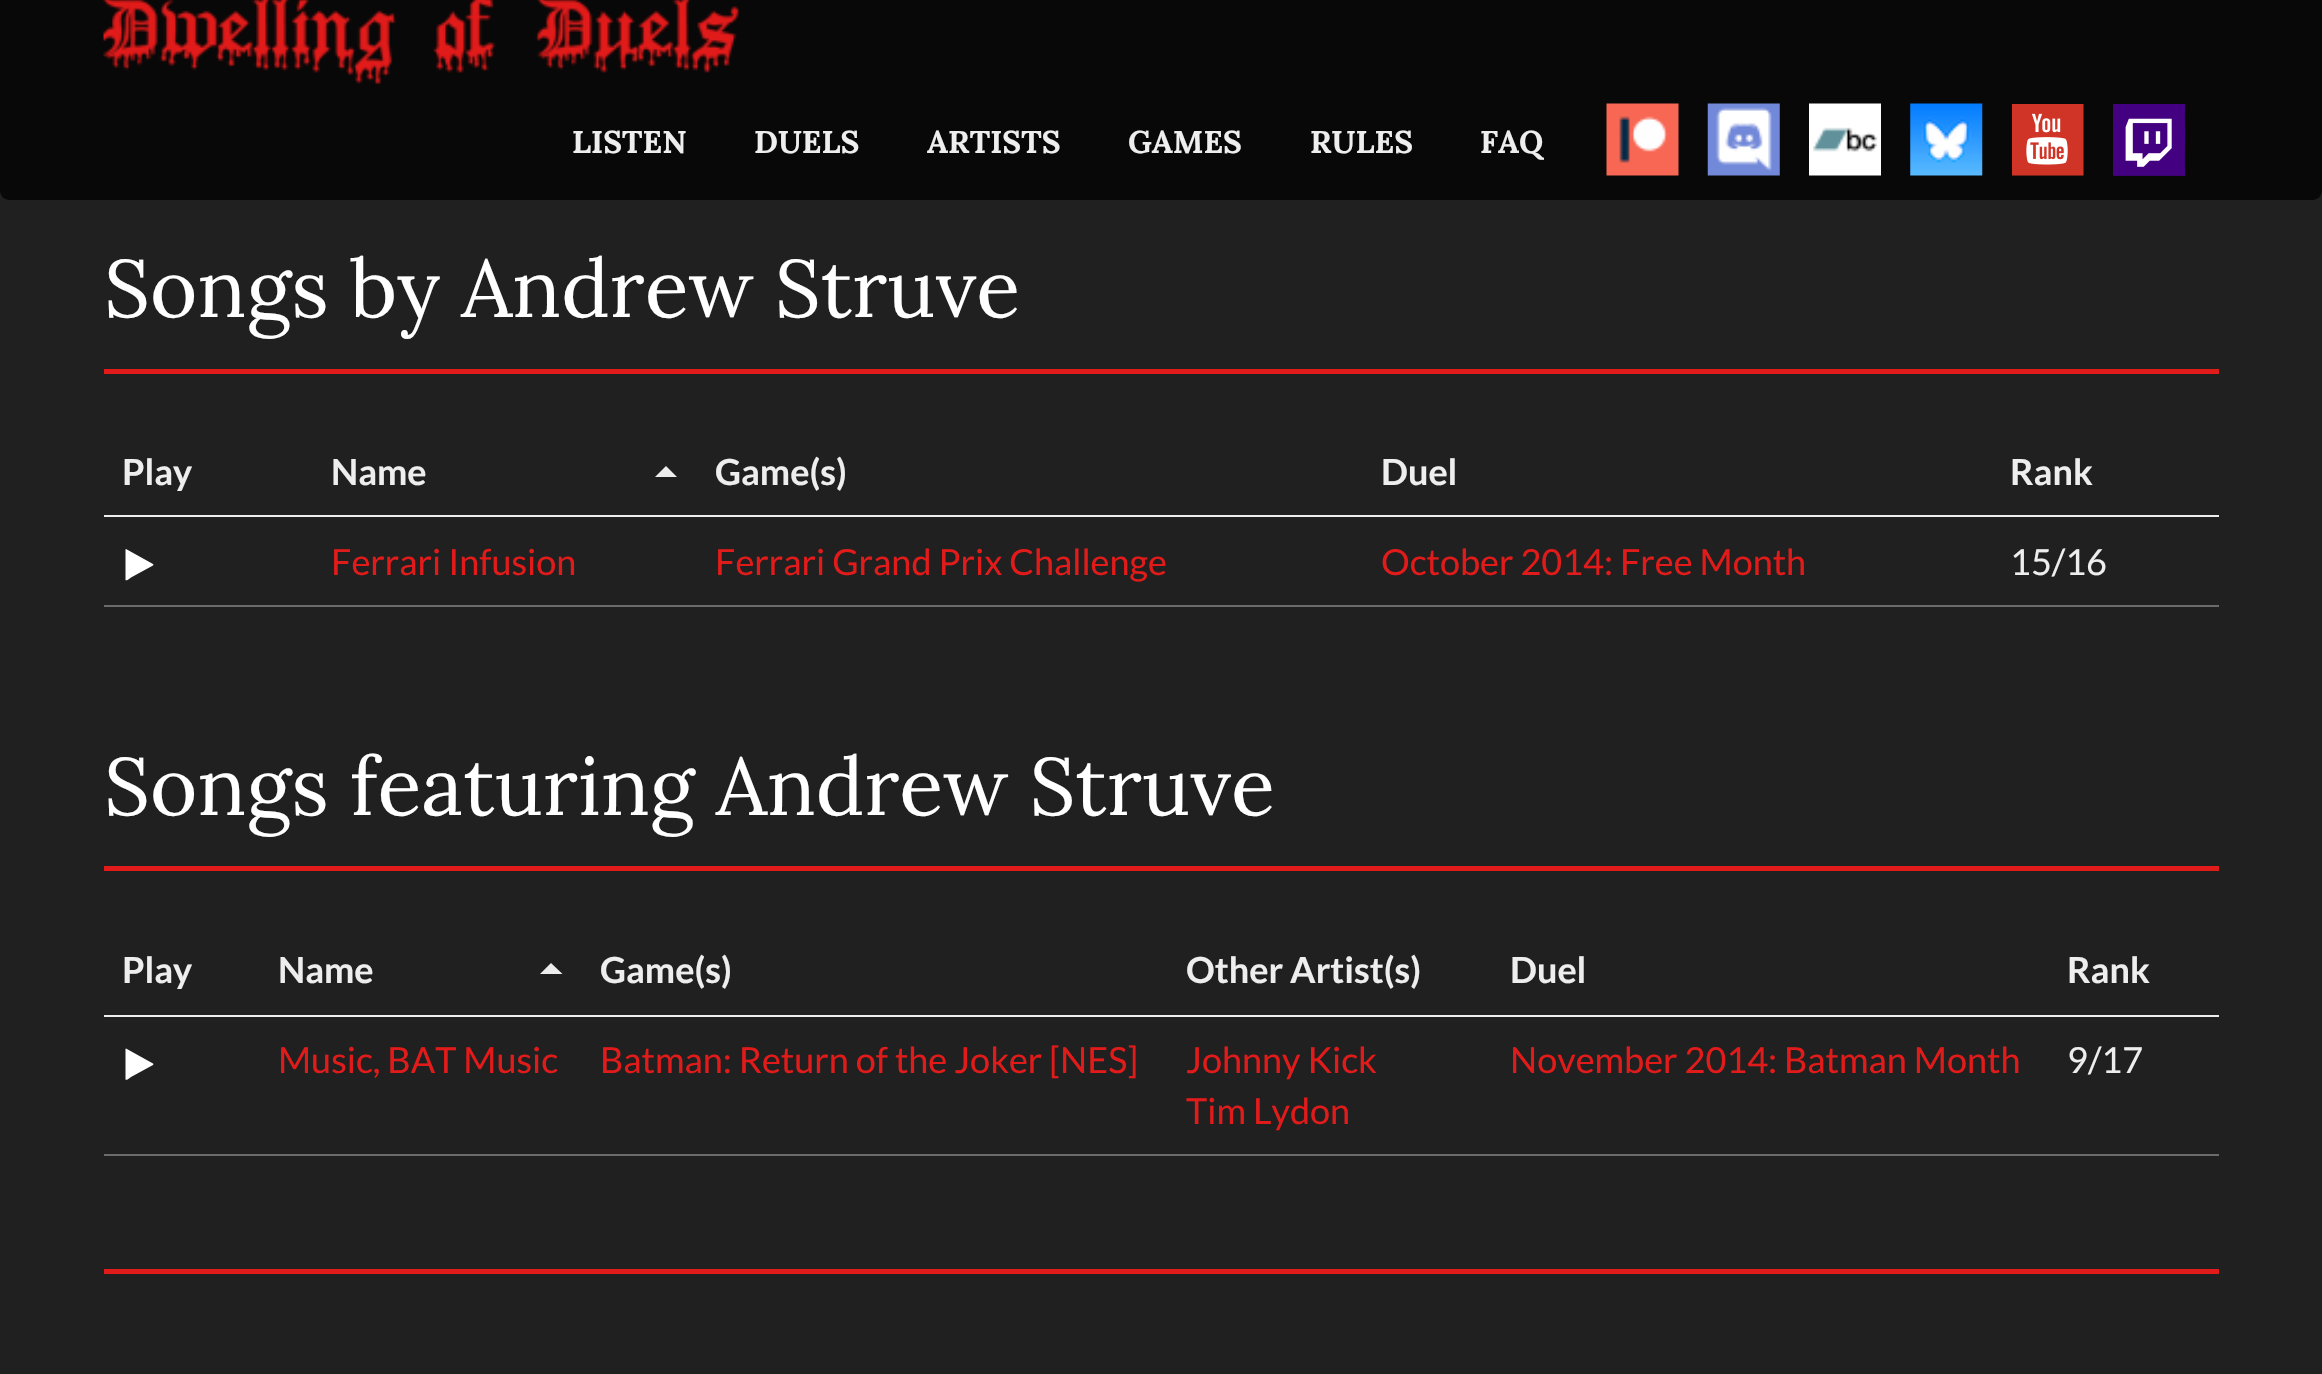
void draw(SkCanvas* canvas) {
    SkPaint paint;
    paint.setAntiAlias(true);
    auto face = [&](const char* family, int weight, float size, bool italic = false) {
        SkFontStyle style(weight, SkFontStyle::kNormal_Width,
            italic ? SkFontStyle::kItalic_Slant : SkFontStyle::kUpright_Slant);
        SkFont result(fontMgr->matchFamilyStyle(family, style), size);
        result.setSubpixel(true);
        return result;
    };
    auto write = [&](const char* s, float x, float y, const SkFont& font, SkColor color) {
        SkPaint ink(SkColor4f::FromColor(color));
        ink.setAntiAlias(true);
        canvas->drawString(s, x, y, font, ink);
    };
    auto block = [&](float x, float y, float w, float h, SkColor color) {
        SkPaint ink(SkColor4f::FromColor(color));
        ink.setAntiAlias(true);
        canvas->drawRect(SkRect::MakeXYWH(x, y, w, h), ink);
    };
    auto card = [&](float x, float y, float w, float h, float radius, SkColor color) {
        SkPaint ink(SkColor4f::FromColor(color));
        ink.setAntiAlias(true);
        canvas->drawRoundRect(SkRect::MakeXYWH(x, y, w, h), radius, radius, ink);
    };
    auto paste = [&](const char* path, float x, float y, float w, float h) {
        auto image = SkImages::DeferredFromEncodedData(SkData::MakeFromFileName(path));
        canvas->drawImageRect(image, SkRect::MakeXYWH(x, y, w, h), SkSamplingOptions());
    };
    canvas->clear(SkColorSetRGB(32, 32, 32));
    card(0, -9, 2322, 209, 9, SkColorSetRGB(8, 8, 8));
    paste("pic1.png", 103, 0, 637, 85);
    auto kFont1 = face("Lora", 700, 31.5f);
    write("LISTEN", 572, 153, kFont1, SkColorSetRGB(238, 238, 238));
    write("DUELS", 754, 153, kFont1, SkColorSetRGB(238, 238, 238));
    write("ARTISTS", 927, 153, kFont1, SkColorSetRGB(238, 238, 238));
    write("GAMES", 1128, 153, kFont1, SkColorSetRGB(238, 238, 238));
    write("RULES", 1310, 153, kFont1, SkColorSetRGB(238, 238, 238));
    write("FAQ", 1480, 153, kFont1, SkColorSetRGB(238, 238, 238));
    paste("pic2.png", 1606, 103, 73, 73);
    paste("pic3.png", 1707, 103, 73, 73);
    paste("pic4.png", 1809, 103, 72, 73);
    paste("pic5.png", 1910, 103, 73, 73);
    paste("pic6.png", 2012, 104, 72, 72);
    paste("pic7.png", 2113, 104, 72, 72);
    auto kFont2 = face("Lora", 400, 81);
    write("Songs by Andrew Struve", 104, 317, kFont2, SK_ColorWHITE);
    block(104, 369, 2115, 5, SkColorSetRGB(225, 26, 26));
    auto kFont3 = face("Lato", 700, 36);
    write("Play", 122, 485, kFont3, SkColorSetRGB(238, 238, 238));
    write("Name", 331, 485, kFont3, SkColorSetRGB(238, 238, 238));
    paint.setColor(SkColorSetRGB(238, 238, 238));
    canvas->drawPath(SkPathBuilder().moveTo(677, 477).lineTo(655, 477).lineTo(666, 466).close().detach(), paint);
    write("Game(s)", 715, 485, kFont3, SkColorSetRGB(238, 238, 238));
    write("Duel", 1381, 485, kFont3, SkColorSetRGB(238, 238, 238));
    block(104, 515, 2115, 2, SkColorSetRGB(238, 238, 238));
    write("Rank", 2010, 485, kFont3, SkColorSetRGB(238, 238, 238));
    paint.setColor(SK_ColorWHITE);
    canvas->drawPath(SkPathBuilder().moveTo(153, 565.5f).lineTo(131, 577.5f).cubicTo(130.5f, 578, 126.5f, 581.5f, 125.5f, 580).lineTo(125.5f, 549.5f).lineTo(126, 549).lineTo(153, 564).lineTo(153.5f, 564.5f).close().detach(), paint);
    auto kFont4 = face("Lato", 400, 36);
    write("Ferrari Infusion", 331, 575, kFont4, SkColorSetRGB(225, 26, 26));
    write("Ferrari Grand Prix Challenge", 715, 575, kFont4, SkColorSetRGB(225, 26, 26));
    write("October 2014: Free Month", 1381, 575, kFont4, SkColorSetRGB(225, 26, 26));
    block(104, 605, 2115, 2, SkColorSetRGB(107, 107, 107));
    write("15/16", 2010, 575, kFont4, SkColorSetRGB(238, 238, 238));
    write("Songs featuring Andrew Struve", 104, 815, kFont2, SK_ColorWHITE);
    block(104, 866, 2115, 5, SkColorSetRGB(225, 26, 26));
    write("Play", 122, 983, kFont3, SkColorSetRGB(238, 238, 238));
    write("Name", 278, 983, kFont3, SkColorSetRGB(238, 238, 238));
    paint.setColor(SkColorSetRGB(238, 238, 238));
    canvas->drawPath(SkPathBuilder().moveTo(562.5f, 974).lineTo(540, 974).lineTo(551, 963).close().detach(), paint);
    write("Game(s)", 600, 983, kFont3, SkColorSetRGB(238, 238, 238));
    write("Other Artist(s)", 1186, 983, kFont3, SkColorSetRGB(238, 238, 238));
    write("Duel", 1510, 983, kFont3, SkColorSetRGB(238, 238, 238));
    block(104, 1015, 2115, 2, SkColorSetRGB(238, 238, 238));
    write("Rank", 2067, 983, kFont3, SkColorSetRGB(238, 238, 238));
    paint.setColor(SK_ColorWHITE);
    canvas->drawPath(SkPathBuilder().moveTo(153, 1065).lineTo(131, 1077).cubicTo(130.5f, 1077.5f, 126.5f, 1081, 125.5f, 1079.5f).lineTo(125.5f, 1049).lineTo(126, 1048.5f).lineTo(153, 1063.5f).lineTo(153.5f, 1064).close().detach(), paint);
    write("Music, BAT Music", 278, 1073, kFont4, SkColorSetRGB(225, 26, 26));
    write("Batman: Return of the Joker [NES]", 600, 1073, kFont4, SkColorSetRGB(225, 26, 26));
    write("Johnny Kick", 1186, 1073, kFont4, SkColorSetRGB(225, 26, 26));
    write("Tim Lydon", 1186, 1124, kFont4, SkColorSetRGB(225, 26, 26));
    write("November 2014: Batman Month", 1510, 1073, kFont4, SkColorSetRGB(225, 26, 26));
    block(104, 1154, 2115, 2, SkColorSetRGB(107, 107, 107));
    write("9/17", 2067, 1073, kFont4, SkColorSetRGB(238, 238, 238));
    block(104, 1269, 2115, 5, SkColorSetRGB(225, 26, 26));
}
